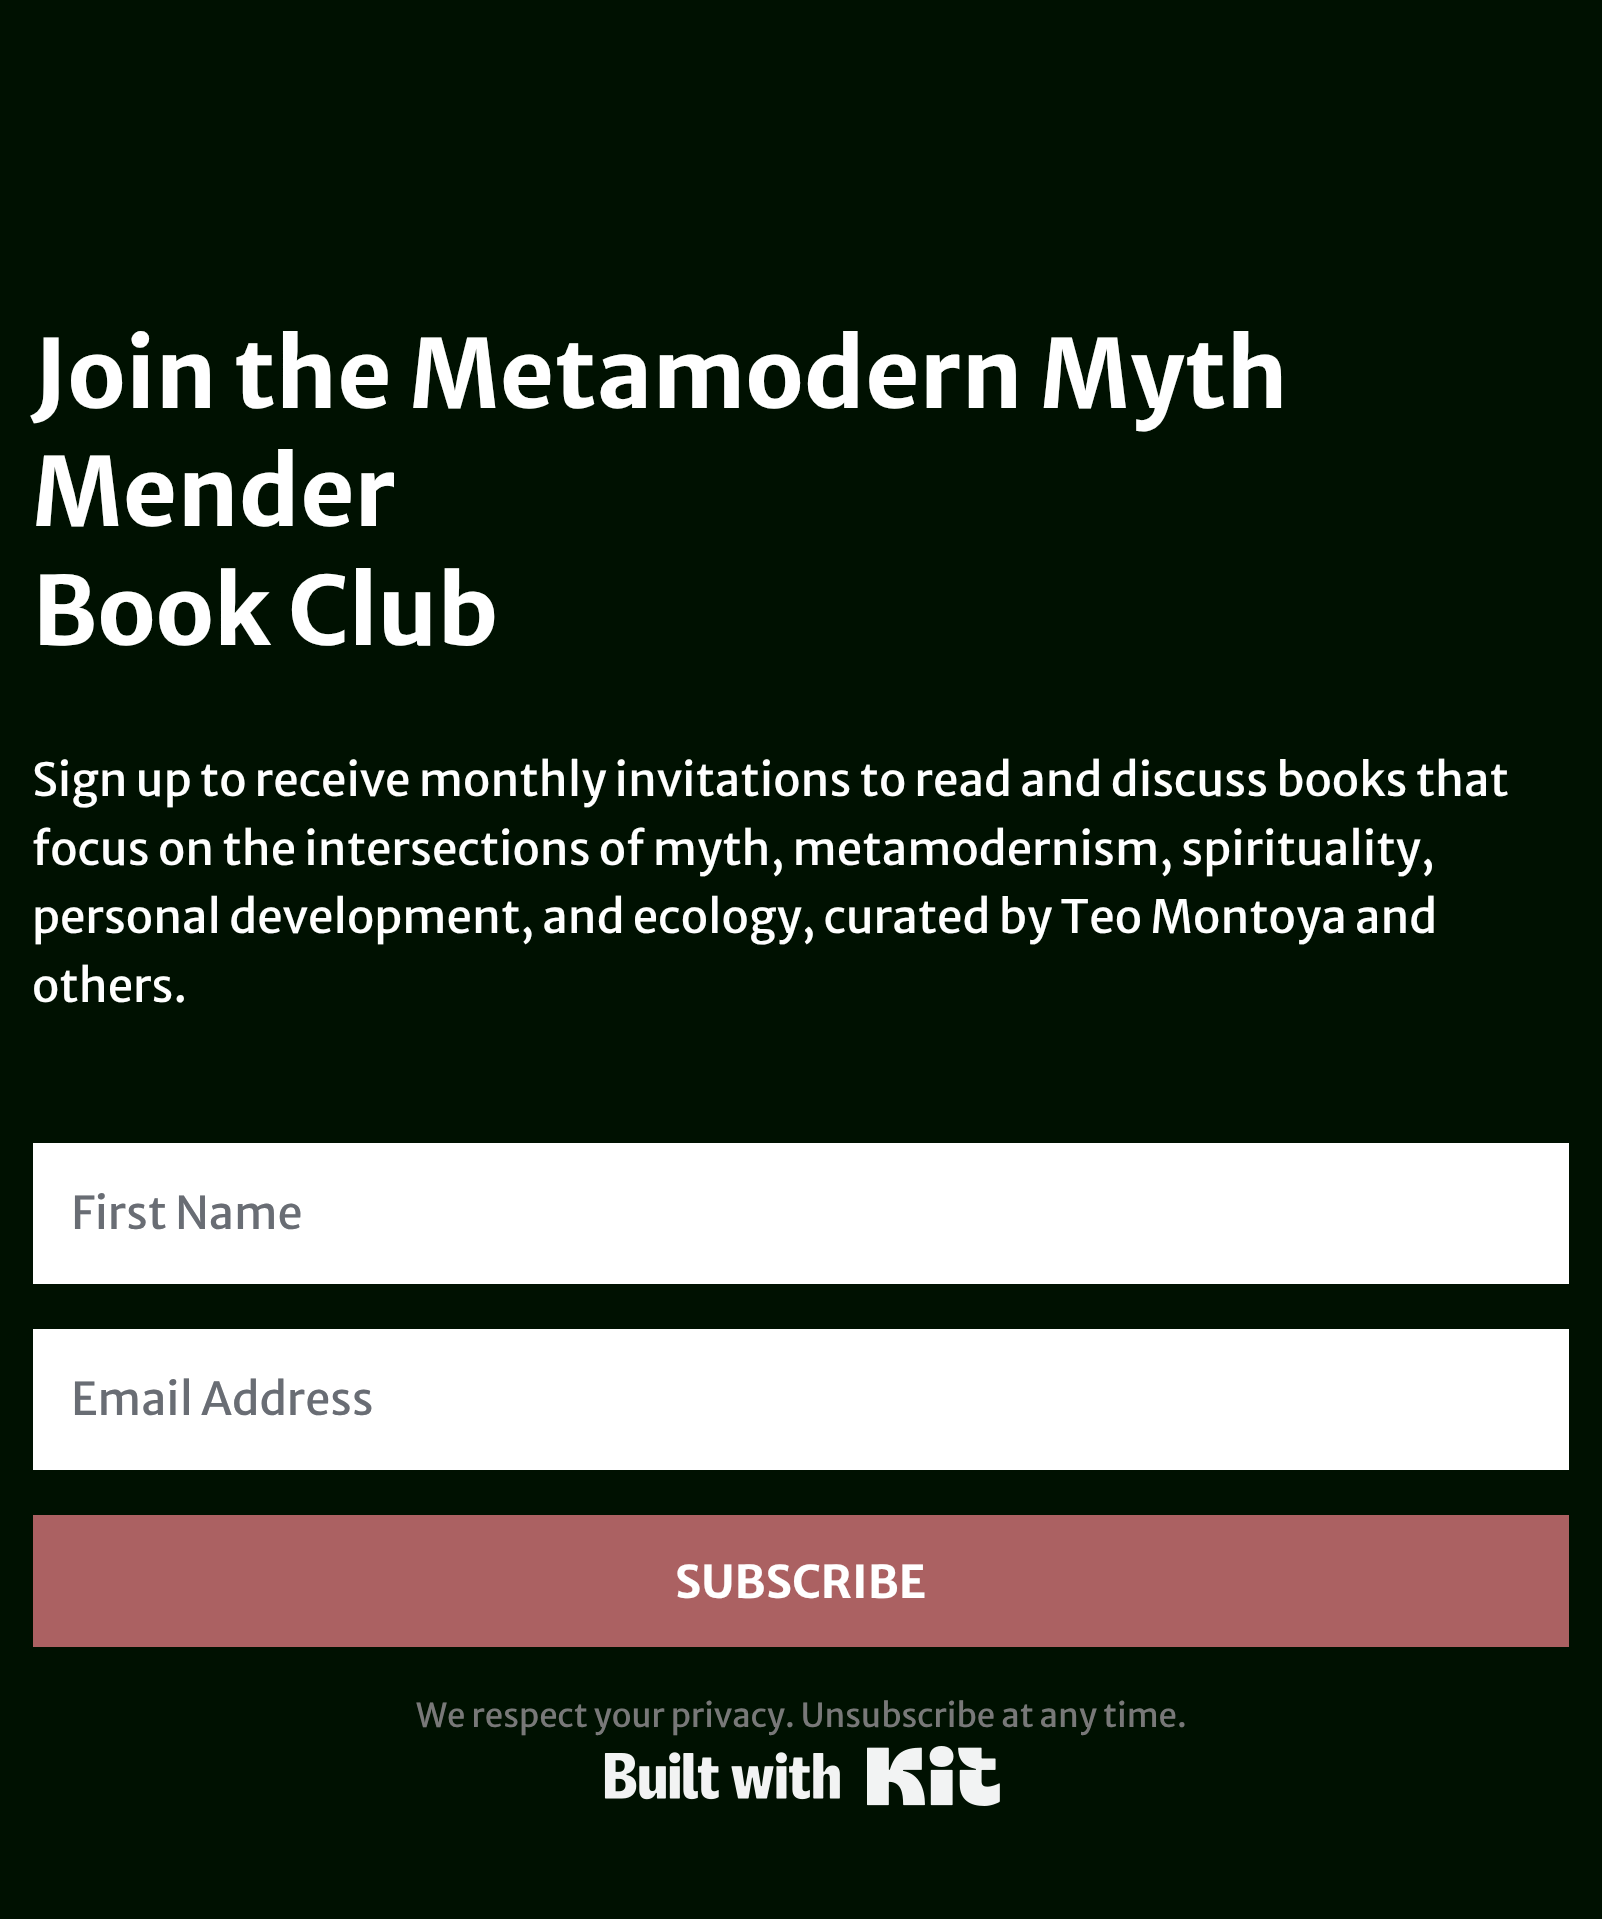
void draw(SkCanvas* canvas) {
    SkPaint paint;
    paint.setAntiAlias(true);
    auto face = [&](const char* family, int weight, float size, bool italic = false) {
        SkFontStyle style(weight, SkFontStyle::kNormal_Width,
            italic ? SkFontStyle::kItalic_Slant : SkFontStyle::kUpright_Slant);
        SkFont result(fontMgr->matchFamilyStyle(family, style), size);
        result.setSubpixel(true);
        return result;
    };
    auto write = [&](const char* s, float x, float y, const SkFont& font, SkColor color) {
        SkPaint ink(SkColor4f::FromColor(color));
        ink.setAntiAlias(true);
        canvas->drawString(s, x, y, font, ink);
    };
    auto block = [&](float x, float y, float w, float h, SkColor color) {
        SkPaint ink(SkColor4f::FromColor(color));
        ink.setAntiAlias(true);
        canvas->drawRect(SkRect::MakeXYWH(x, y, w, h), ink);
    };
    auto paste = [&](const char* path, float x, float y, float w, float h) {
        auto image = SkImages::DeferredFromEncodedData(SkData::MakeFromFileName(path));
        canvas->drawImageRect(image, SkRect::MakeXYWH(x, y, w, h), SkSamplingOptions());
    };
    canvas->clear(SkColorSetRGB(0, 17, 1));
    auto kFont1 = face("Merriweather Sans", 700, 94.75f);
    write("Join the Metamodern Myth", 32, 408, kFont1, SK_ColorWHITE);
    write("Mender", 32, 526, kFont1, SK_ColorWHITE);
    write("Book Club", 32, 645, kFont1, SK_ColorWHITE);
    auto kFont2 = face("Merriweather Sans", 400, 45.7f);
    write("Sign up to receive monthly invitations to read and discuss books that", 32, 796, kFont2, SK_ColorWHITE);
    write("focus on the intersections of myth, metamodernism, spirituality,", 32, 865, kFont2, SK_ColorWHITE);
    write("personal development, and ecology, curated by Teo Montoya and", 32, 933, kFont2, SK_ColorWHITE);
    write("others.", 32, 1002, kFont2, SK_ColorWHITE);
    block(33, 1143, 1536, 141, SK_ColorWHITE);
    auto kFont3 = face("Merriweather Sans", 400, 45);
    write("First Name", 71, 1229, kFont3, SkColorSetRGB(105, 109, 116));
    block(33, 1329, 1536, 141, SK_ColorWHITE);
    write("Email Address", 71, 1415, kFont3, SkColorSetRGB(105, 109, 116));
    block(33, 1515, 1536, 132, SkColorSetRGB(171, 97, 98));
    auto kFont4 = face("Merriweather Sans", 700, 45);
    write("SUBSCRIBE", 675, 1598, kFont4, SK_ColorWHITE);
    auto kFont5 = face("Merriweather Sans", 400, 33);
    write("We respect your privacy. Unsubscribe at any time.", 416, 1727, kFont5, SkColorSetRGB(120, 120, 120));
    paste("pic1.png", 604, 1746, 396, 60);
}
